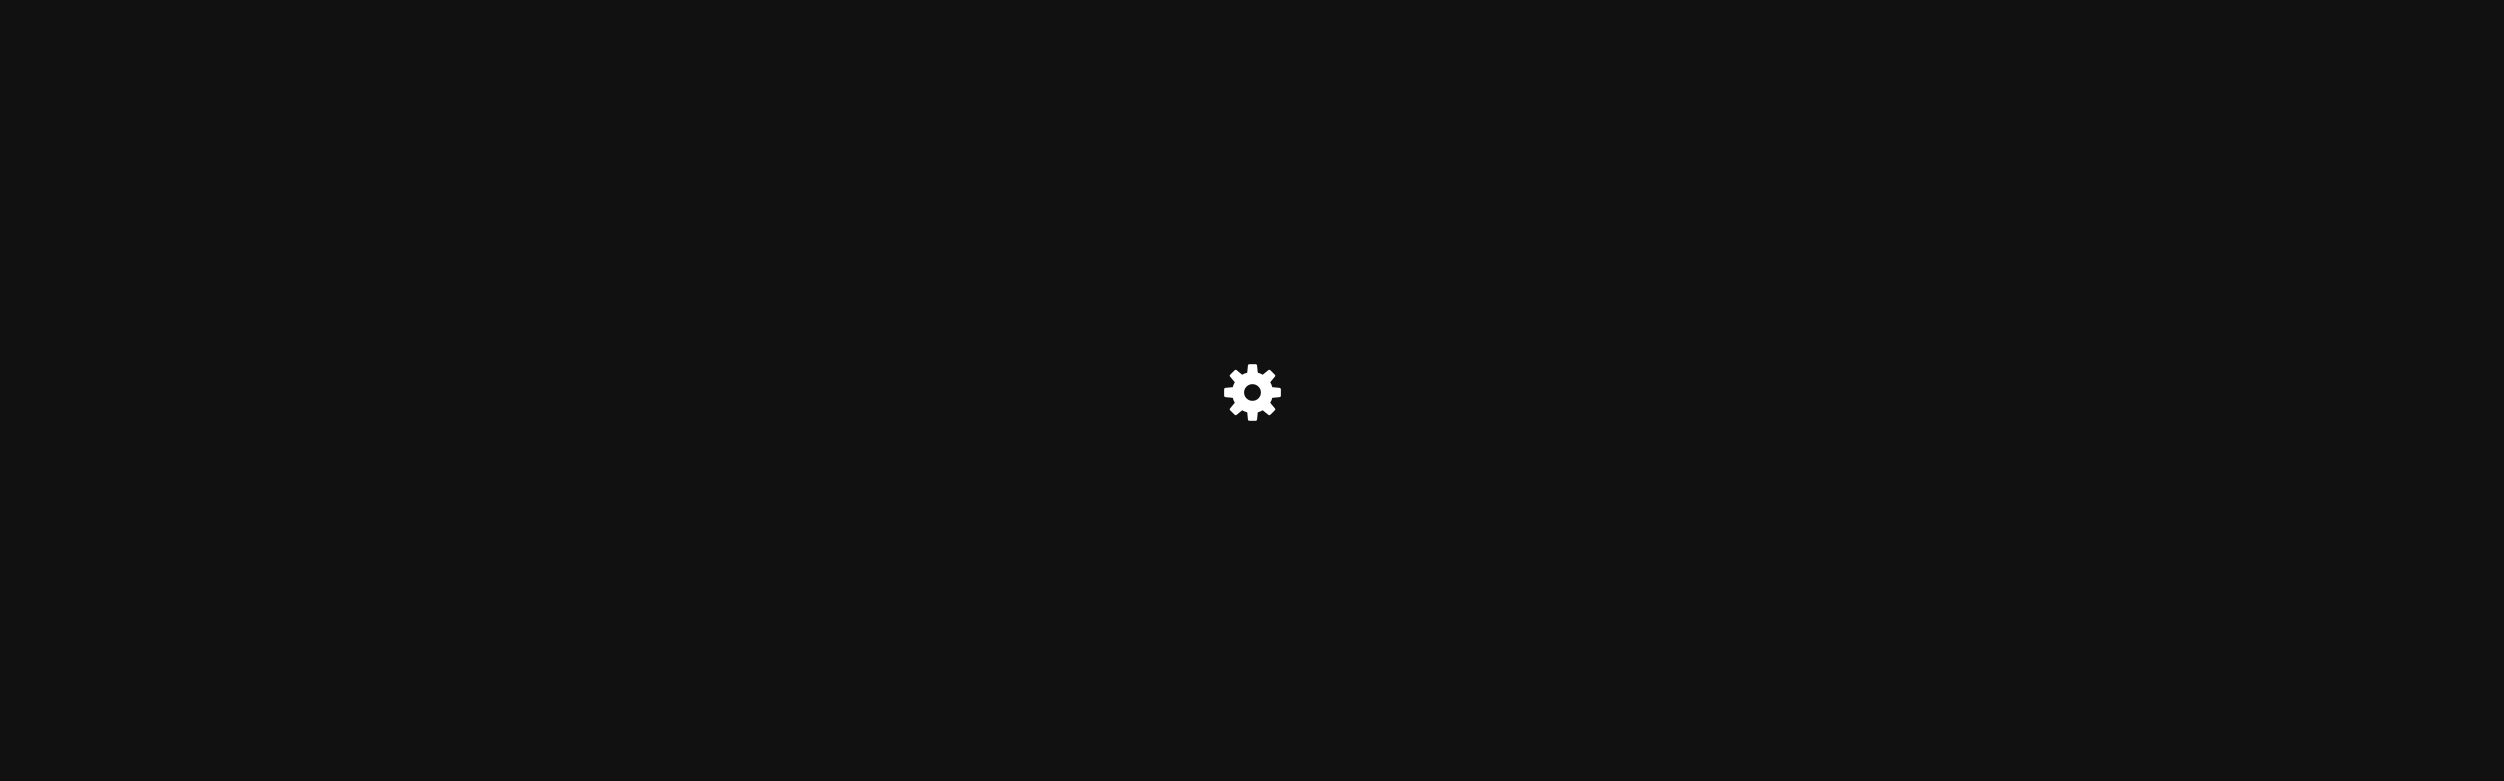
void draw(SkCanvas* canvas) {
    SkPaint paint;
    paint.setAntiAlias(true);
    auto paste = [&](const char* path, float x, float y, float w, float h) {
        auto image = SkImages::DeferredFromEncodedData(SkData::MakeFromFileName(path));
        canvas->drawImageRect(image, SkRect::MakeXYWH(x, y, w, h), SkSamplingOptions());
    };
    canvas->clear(SkColorSetRGB(17, 17, 17));
    paste("pic1.png", 1224, 364, 57, 57);
}
